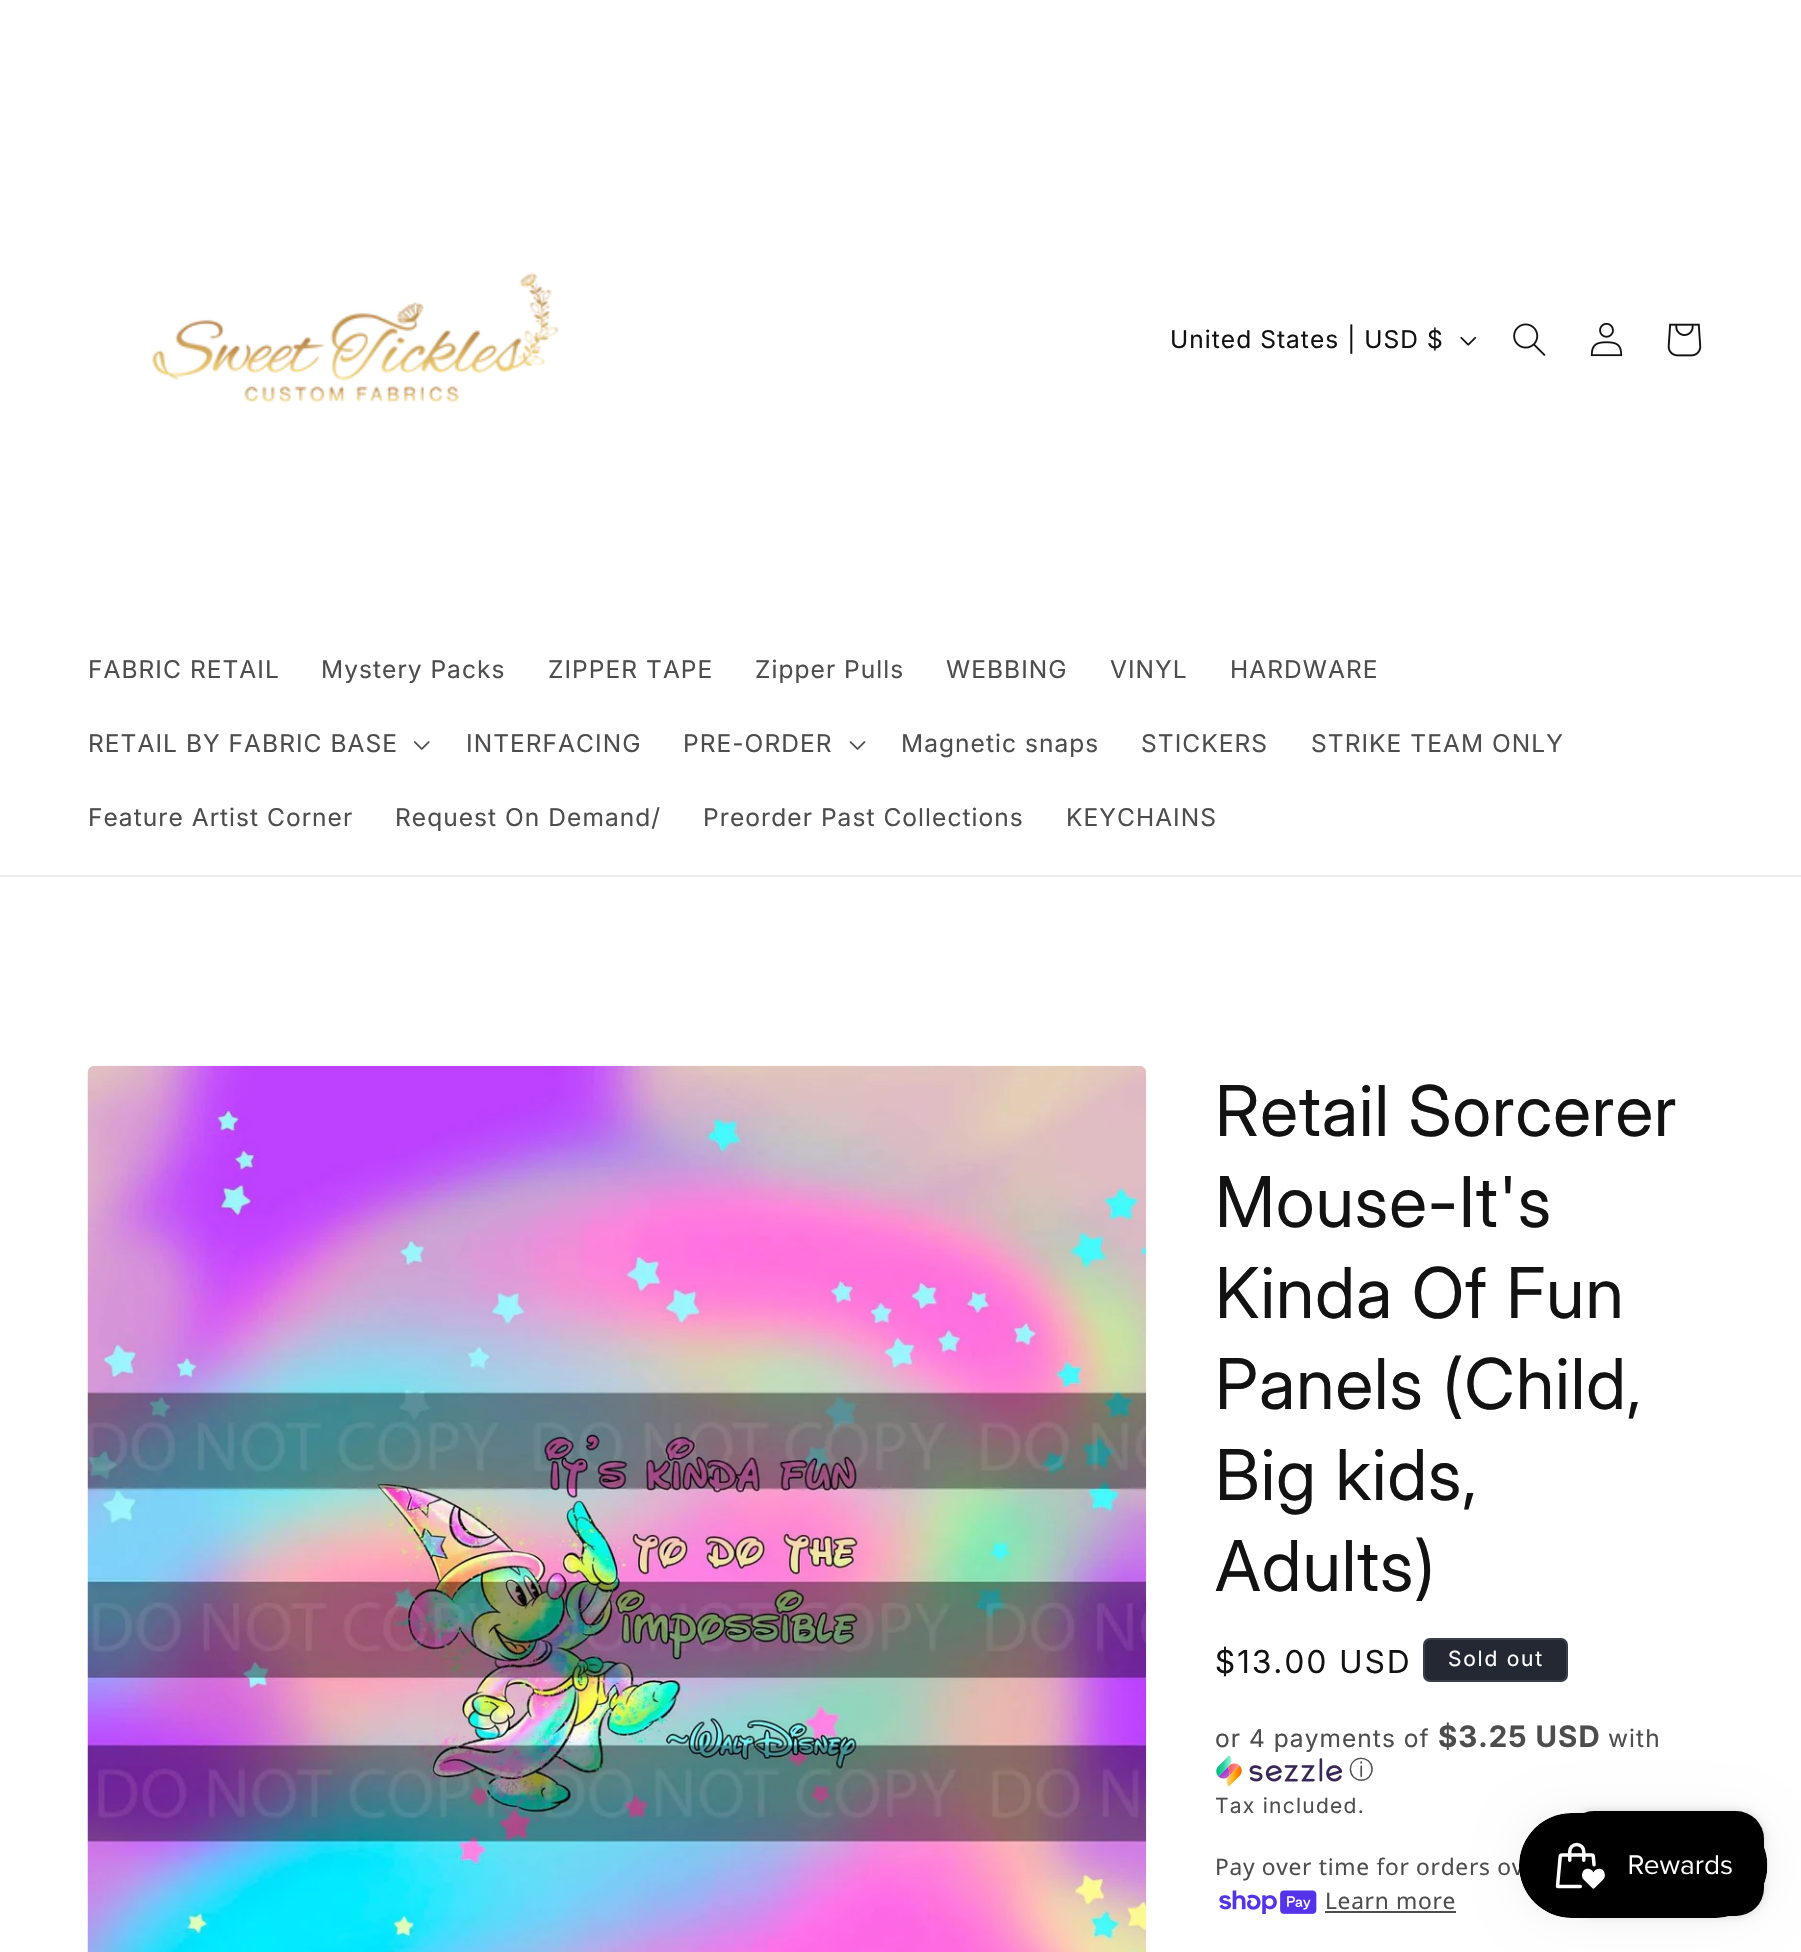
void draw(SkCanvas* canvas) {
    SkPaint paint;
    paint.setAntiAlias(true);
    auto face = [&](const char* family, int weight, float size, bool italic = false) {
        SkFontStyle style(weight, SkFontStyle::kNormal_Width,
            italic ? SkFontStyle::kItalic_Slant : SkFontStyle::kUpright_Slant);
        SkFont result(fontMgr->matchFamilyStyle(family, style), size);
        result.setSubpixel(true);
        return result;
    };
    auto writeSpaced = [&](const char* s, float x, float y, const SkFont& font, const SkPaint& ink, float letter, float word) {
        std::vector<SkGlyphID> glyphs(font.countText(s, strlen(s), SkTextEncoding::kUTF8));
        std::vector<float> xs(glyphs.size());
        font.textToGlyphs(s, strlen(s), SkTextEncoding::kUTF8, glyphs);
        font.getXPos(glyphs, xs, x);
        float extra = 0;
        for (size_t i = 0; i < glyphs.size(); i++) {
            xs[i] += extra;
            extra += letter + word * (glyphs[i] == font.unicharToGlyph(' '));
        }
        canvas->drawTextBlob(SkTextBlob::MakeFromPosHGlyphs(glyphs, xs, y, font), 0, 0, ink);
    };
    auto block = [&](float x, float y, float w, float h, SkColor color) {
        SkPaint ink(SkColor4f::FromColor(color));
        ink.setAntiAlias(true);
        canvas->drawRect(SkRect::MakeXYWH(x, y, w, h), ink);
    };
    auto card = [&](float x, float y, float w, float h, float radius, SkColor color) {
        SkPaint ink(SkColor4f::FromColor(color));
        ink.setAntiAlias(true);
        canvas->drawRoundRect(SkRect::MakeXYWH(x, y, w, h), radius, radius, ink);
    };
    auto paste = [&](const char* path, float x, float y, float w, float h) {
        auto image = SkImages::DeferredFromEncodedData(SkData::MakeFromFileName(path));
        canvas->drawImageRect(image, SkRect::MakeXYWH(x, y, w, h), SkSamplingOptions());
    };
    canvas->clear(SK_ColorWHITE);
    block(0, 875, 1801, 2, SkColorSetRGB(236, 236, 236));
    paste("pic1.png", 151, 272, 408, 131);
    auto kFont1 = face("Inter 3", 400, 24.5f);
    paint.setColor(SkColorSetRGB(18, 18, 18));
    writeSpaced("United States | USD $", 1170, 348, kFont1, paint, 1.05f, 0);
    paste("pic2.png", 1460, 336, 17, 10);
    paste("pic3.png", 1513, 323, 33, 33);
    paste("pic4.png", 1590, 322, 33, 35);
    paste("pic5.png", 1667, 323, 35, 34);
    paint.setColor(SkColorSetRGB(77, 77, 77));
    writeSpaced("FABRIC RETAIL", 88, 678, kFont1, paint, 1.05f, 0);
    writeSpaced("Mystery Packs", 321, 678, kFont1, paint, 1.05f, 0);
    writeSpaced("ZIPPER TAPE", 548, 678, kFont1, paint, 1.05f, 0);
    writeSpaced("Zipper Pulls", 755, 678, kFont1, paint, 1.05f, 0);
    writeSpaced("WEBBING", 946, 678, kFont1, paint, 1.05f, 0);
    writeSpaced("VINYL", 1110, 678, kFont1, paint, 1.05f, 0);
    writeSpaced("HARDWARE", 1230, 678, kFont1, paint, 1.05f, 0);
    writeSpaced("RETAIL BY FABRIC BASE", 88, 752, kFont1, paint, 1.05f, 0);
    paste("pic6.png", 414, 741, 16, 9);
    writeSpaced("INTERFACING", 466, 752, kFont1, paint, 1.05f, 0);
    writeSpaced("PRE-ORDER", 683, 752, kFont1, paint, 1.05f, 0);
    paste("pic7.png", 849, 741, 17, 9);
    writeSpaced("Magnetic snaps", 901, 752, kFont1, paint, 1.05f, 0);
    writeSpaced("STICKERS", 1141, 752, kFont1, paint, 1.05f, 0);
    writeSpaced("STRIKE TEAM ONLY", 1311, 752, kFont1, paint, 1.05f, 0);
    writeSpaced("Feature Artist Corner", 88, 826, kFont1, paint, 1.05f, 0);
    writeSpaced("Request On Demand/", 395, 826, kFont1, paint, 1.05f, 0);
    writeSpaced("Preorder Past Collections", 703, 826, kFont1, paint, 1.05f, 0);
    writeSpaced("KEYCHAINS", 1066, 826, kFont1, paint, 1.05f, 0);
    paste("pic8.png", 87, 1065, 1060, 887);
    auto kFont2 = face("Inter", 400, 70);
    paint.setColor(SkColorSetRGB(18, 18, 18));
    writeSpaced("Retail Sorcerer", 1215, 1136, kFont2, paint, 1.05f, 0);
    writeSpaced("Mouse-It's", 1215, 1227, kFont2, paint, 1.05f, 0);
    writeSpaced("Kinda Of Fun", 1215, 1318, kFont2, paint, 1.05f, 0);
    writeSpaced("Panels (Child,", 1215, 1409, kFont2, paint, 1.05f, 0);
    writeSpaced("Big kids,", 1215, 1500, kFont2, paint, 1.05f, 0);
    writeSpaced("Adults)", 1215, 1591, kFont2, paint, 1.05f, 0);
    auto kFont3 = face("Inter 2", 400, 31.5f);
    writeSpaced("$13.00 USD", 1215, 1673, kFont3, paint, 2.25f, 0);
    card(1423, 1638, 145, 44, 7, SkColorSetRGB(36, 40, 51));
    paint.setStyle(SkPaint::kStroke_Style);
    paint.setStrokeWidth(2);
    paint.setColor(SkColorSetARGB(26, 255, 255, 255));
    canvas->drawRoundRect(SkRect::MakeXYWH(1424, 1639, 143, 42), 6, 6, paint);
    auto kFont4 = face("Inter 3", 400, 21);
    paint.setStyle(SkPaint::kFill_Style);
    paint.setColor(SK_ColorWHITE);
    writeSpaced("Sold out", 1448, 1666, kFont4, paint, 1.75f, 0);
    paint.setColor(SkColorSetRGB(77, 77, 77));
    writeSpaced("or 4 payments of", 1215, 1747, kFont1, paint, 1.05f, 0);
    auto kFont5 = face("Inter", 700, 29.5f);
    writeSpaced("$3.25 USD", 1438, 1747, kFont5, paint, 1.05f, 0);
    writeSpaced("with", 1608, 1747, kFont1, paint, 1.05f, 0);
    paste("pic9.png", 1216, 1755, 126, 32);
    auto kFont6 = face("WenQuanYi Zen Hei", 500, 24.5f);
    writeSpaced("ⓘ", 1349, 1778, kFont6, paint, 1.05f, 0);
    writeSpaced("Tax included.", 1215, 1813, kFont4, paint, 1.25f, 0);
    auto kFont7 = face("Noto Sans", 400, 22.75f);
    writeSpaced("Pay over time for orders ov", 1215, 1875, kFont7, paint, 0.7f, 0);
    paste("pic10.png", 1219, 1890, 98, 24);
    writeSpaced("Learn more", 1325, 1909, kFont7, paint, 0.7f, 0);
    block(1325, 1911, 131, 2, SkColorSetRGB(77, 77, 77));
    paint.setColor(SkColorSetARGB(38, 0, 0, 0));
    paint.setMaskFilter(SkMaskFilter::MakeBlur(kNormal_SkBlurStyle, 4.5f));
    canvas->drawRoundRect(SkRect::MakeXYWH(1566, 1811, 198, 105), 28, 28, paint);
    paint.setMaskFilter(nullptr);
    card(1566, 1811, 198, 105, 28, SK_ColorBLACK);
    paint.setColor(SkColorSetARGB(13, 0, 0, 0));
    paint.setMaskFilter(SkMaskFilter::MakeBlur(kNormal_SkBlurStyle, 22));
    canvas->drawRoundRect(SkRect::MakeXYWH(1519, 1813, 249, 105), 52.5f, 52.5f, paint);
    paint.setMaskFilter(nullptr);
    paste("pic11.png", 1519, 1813, 249, 105);
}
